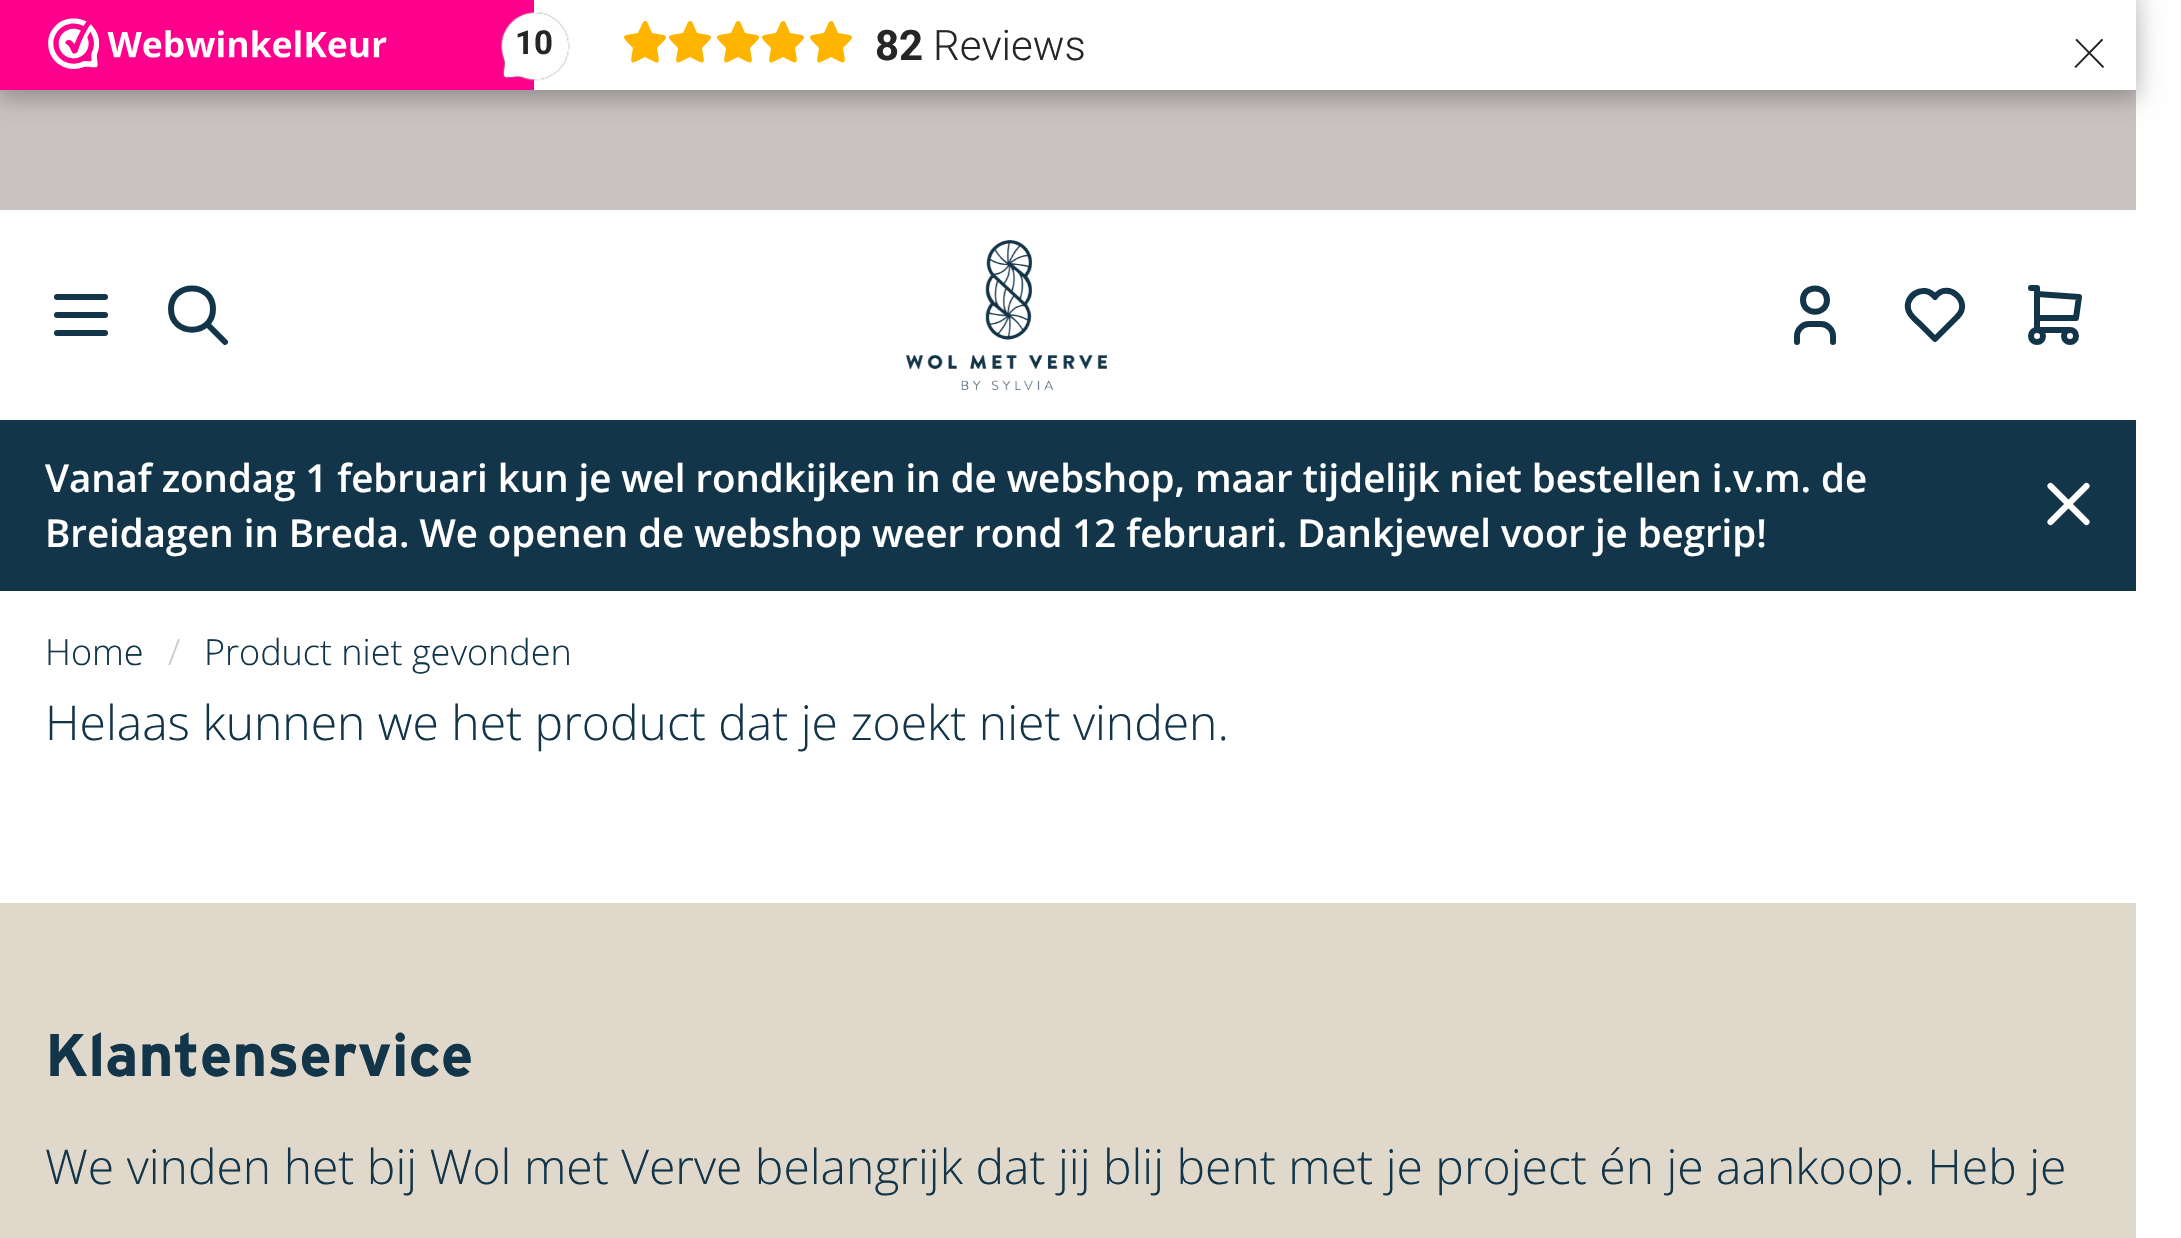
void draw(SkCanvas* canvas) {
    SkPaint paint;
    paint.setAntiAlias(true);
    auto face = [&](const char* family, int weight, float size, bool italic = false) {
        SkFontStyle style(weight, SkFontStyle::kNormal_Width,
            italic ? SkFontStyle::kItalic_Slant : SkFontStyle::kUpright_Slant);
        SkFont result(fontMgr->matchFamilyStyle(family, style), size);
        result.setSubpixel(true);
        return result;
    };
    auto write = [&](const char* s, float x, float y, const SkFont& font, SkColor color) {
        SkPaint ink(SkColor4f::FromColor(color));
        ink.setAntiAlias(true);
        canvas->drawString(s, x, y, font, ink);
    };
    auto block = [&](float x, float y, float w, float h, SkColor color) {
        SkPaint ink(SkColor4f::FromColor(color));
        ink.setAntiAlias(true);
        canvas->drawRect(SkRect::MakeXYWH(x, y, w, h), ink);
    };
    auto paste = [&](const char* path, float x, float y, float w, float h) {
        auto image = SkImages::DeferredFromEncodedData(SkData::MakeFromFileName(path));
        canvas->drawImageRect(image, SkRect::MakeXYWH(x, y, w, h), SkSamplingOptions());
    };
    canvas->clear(SK_ColorWHITE);
    block(0, 90, 2136, 120, SkColorSetRGB(201, 195, 193));
    paint.setColor(SkColorSetARGB(38, 0, 0, 0));
    paint.setMaskFilter(SkMaskFilter::MakeBlur(kNormal_SkBlurStyle, 9));
    canvas->drawRect(SkRect::MakeXYWH(-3, -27, 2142, 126), paint);
    paint.setMaskFilter(nullptr);
    paint.setMaskFilter(SkMaskFilter::MakeBlur(kNormal_SkBlurStyle, 15));
    canvas->drawRect(SkRect::MakeXYWH(0, 6, 2136, 90), paint);
    paint.setMaskFilter(nullptr);
    block(0, 0, 534, 90, SkColorSetRGB(254, 0, 140));
    paste("pic1.png", 48, 18, 339, 51);
    block(534, 0, 1602, 90, SK_ColorWHITE);
    paste("pic2.png", 501, 12, 69, 69);
    auto kFont1 = face("Roboto", 700, 33);
    write("10", 515, 54, kFont1, SkColorSetRGB(39, 38, 38));
    canvas->save();
    canvas->clipRect(SkRect::MakeXYWH(624, 21, 42, 42));
    paint.setColor(SkColorSetRGB(255, 180, 0));
    canvas->drawPath(SkPathBuilder().moveTo(643, 22).lineTo(645, 21).cubicTo(647, 20, 648, 24, 649, 26).lineTo(652, 33).cubicTo(670, 36, 670, 35, 657, 48).cubicTo(660, 66, 661, 65, 645, 57).cubicTo(629, 65, 630, 66, 633, 48).cubicTo(620, 35, 620, 36, 638, 33).close().detach(), paint);
    canvas->restore();
    canvas->save();
    canvas->clipRect(SkRect::MakeXYWH(669, 21, 42, 42));
    canvas->drawPath(SkPathBuilder().moveTo(688, 22).lineTo(690, 21).cubicTo(692, 20, 693, 24, 694, 26).lineTo(697, 33).cubicTo(715, 36, 715, 35, 702, 48).cubicTo(705, 66, 706, 65, 690, 57).cubicTo(674, 65, 675, 66, 678, 48).cubicTo(665, 35, 665, 36, 683, 33).close().detach(), paint);
    canvas->restore();
    canvas->save();
    canvas->clipRect(SkRect::MakeXYWH(717, 21, 42, 42));
    canvas->drawPath(SkPathBuilder().moveTo(736, 22).lineTo(738, 21).cubicTo(740, 20, 741, 24, 742, 26).lineTo(745, 33).cubicTo(763, 36, 763, 35, 750, 48).cubicTo(753, 66, 754, 65, 738, 57).cubicTo(722, 65, 723, 66, 726, 48).cubicTo(713, 35, 713, 36, 731, 33).close().detach(), paint);
    canvas->restore();
    canvas->save();
    canvas->clipRect(SkRect::MakeXYWH(762, 21, 42, 42));
    canvas->drawPath(SkPathBuilder().moveTo(781, 22).lineTo(783, 21).cubicTo(785, 20, 786, 24, 787, 26).lineTo(790, 33).cubicTo(808, 36, 808, 35, 795, 48).cubicTo(798, 66, 799, 65, 783, 57).cubicTo(767, 65, 768, 66, 771, 48).cubicTo(758, 35, 758, 36, 776, 33).close().detach(), paint);
    canvas->restore();
    canvas->save();
    canvas->clipRect(SkRect::MakeXYWH(810, 21, 42, 42));
    canvas->drawPath(SkPathBuilder().moveTo(829, 22).lineTo(831, 21).cubicTo(833, 20, 834, 24, 835, 26).lineTo(838, 33).cubicTo(856, 36, 856, 35, 843, 48).cubicTo(846, 66, 847, 65, 831, 57).cubicTo(815, 65, 816, 66, 819, 48).cubicTo(806, 35, 806, 36, 824, 33).close().detach(), paint);
    canvas->restore();
    auto kFont2 = face("Roboto", 700, 42);
    write("82", 875, 60, kFont2, SkColorSetRGB(39, 38, 38));
    auto kFont3 = face("Roboto", 300, 42);
    write("Reviews", 933, 60, kFont3, SkColorSetRGB(39, 38, 38));
    auto kFont4 = face("Roboto", 100, 72);
    write("×", 2071, 68, kFont4, SkColorSetRGB(39, 38, 38));
    paint.setStyle(SkPaint::kStroke_Style);
    paint.setStrokeWidth(6);
    paint.setStrokeCap(SkPaint::kRound_Cap);
    paint.setStrokeJoin(SkPaint::kRound_Join);
    paint.setColor(SkColorSetRGB(18, 53, 73));
    canvas->drawPath(SkPathBuilder().moveTo(57, 297).lineTo(105, 297).moveTo(57, 315).lineTo(105, 315).moveTo(57, 333).lineTo(105, 333).detach(), paint);
    canvas->drawPath(SkPathBuilder().moveTo(171, 309).cubicTo(171, 336.5f, 213, 336.5f, 213, 309).cubicTo(213, 281.5f, 171, 281.5f, 171, 309).moveTo(225, 342).lineTo(207, 324).detach(), paint);
    paste("pic3.png", 906, 240, 201, 150);
    canvas->drawPath(SkPathBuilder().moveTo(1803, 300).cubicTo(1803, 315.5f, 1827, 315.5f, 1827, 300).cubicTo(1827, 284.5f, 1803, 284.5f, 1803, 300).moveTo(1797, 342).lineTo(1797, 336).cubicTo(1797, 329.5f, 1802.5f, 324, 1809, 324).lineTo(1821, 324).cubicTo(1827.5f, 324, 1833, 329.5f, 1833, 336).lineTo(1833, 342).detach(), paint);
    canvas->drawPath(SkPathBuilder().moveTo(1957.5f, 316.5f).lineTo(1935, 339).lineTo(1920, 324).cubicTo(1916.5f, 321, 1912.5f, 317.5f, 1910, 313.5f).cubicTo(1900.5f, 297.5f, 1924, 282, 1935, 297).cubicTo(1947.5f, 280, 1972.5f, 302, 1957.5f, 316.5f).detach(), paint);
    canvas->drawPath(SkPathBuilder().moveTo(2031, 336).cubicTo(2031, 344, 2043, 344, 2043, 336).cubicTo(2043, 328, 2031, 328, 2031, 336).moveTo(2064, 336).cubicTo(2064, 344, 2076, 344, 2076, 336).cubicTo(2076, 328, 2064, 328, 2064, 336).moveTo(2070, 330).lineTo(2037, 330).lineTo(2037, 288).lineTo(2031, 288).moveTo(2037, 294).lineTo(2079, 297).lineTo(2076, 318).lineTo(2037, 318).detach(), paint);
    block(0, 420, 2136, 171, SkColorSetRGB(18, 53, 73));
    auto kFont5 = face("Open Sans", 600, 38.4f);
    write("Vanaf zondag 1 februari kun je wel rondkijken in de webshop, maar tijdelijk niet bestellen i.v.m. de", 45, 492, kFont5, SK_ColorWHITE);
    write("Breidagen in Breda. We openen de webshop weer rond 12 februari. Dankjewel voor je begrip!", 45, 547, kFont5, SK_ColorWHITE);
    paint.setStrokeWidth(6.1f);
    paint.setColor(SK_ColorWHITE);
    canvas->drawPath(SkPathBuilder().moveTo(2050.5f, 522).lineTo(2086.5f, 486).moveTo(2050.5f, 486).lineTo(2086.5f, 522).detach(), paint);
    auto kFont6 = face("Open Sans", 300, 36);
    write("Home", 45, 665, kFont6, SkColorSetRGB(18, 53, 73));
    write("/", 168, 665, kFont6, SkColorSetRGB(204, 204, 204));
    write("Product niet gevonden", 204, 665, kFont6, SkColorSetRGB(18, 53, 73));
    auto kFont7 = face("Open Sans", 300, 48);
    write("Helaas kunnen we het product dat je zoekt niet vinden.", 45, 740, kFont7, SkColorSetRGB(18, 53, 73));
    block(0, 903, 2136, 335, SkColorSetRGB(224, 217, 203));
    auto kFont8 = face("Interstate", 700, 60);
    write("Klantenservice", 45, 1076, kFont8, SkColorSetRGB(18, 53, 73));
    write("We vinden het bij Wol met Verve belangrijk dat jij blij bent met je project én je aankoop. Heb je", 45, 1184, kFont7, SkColorSetRGB(18, 53, 73));
}
